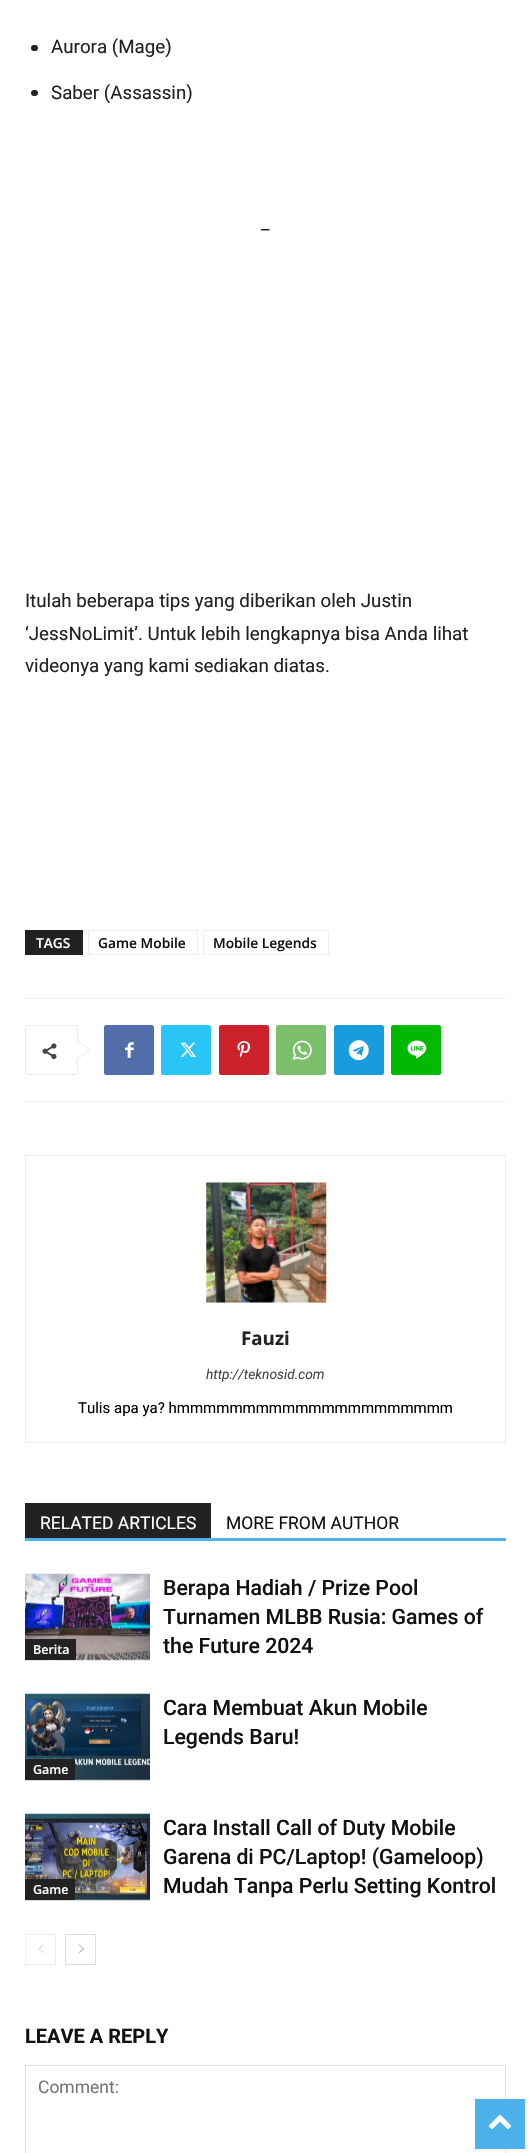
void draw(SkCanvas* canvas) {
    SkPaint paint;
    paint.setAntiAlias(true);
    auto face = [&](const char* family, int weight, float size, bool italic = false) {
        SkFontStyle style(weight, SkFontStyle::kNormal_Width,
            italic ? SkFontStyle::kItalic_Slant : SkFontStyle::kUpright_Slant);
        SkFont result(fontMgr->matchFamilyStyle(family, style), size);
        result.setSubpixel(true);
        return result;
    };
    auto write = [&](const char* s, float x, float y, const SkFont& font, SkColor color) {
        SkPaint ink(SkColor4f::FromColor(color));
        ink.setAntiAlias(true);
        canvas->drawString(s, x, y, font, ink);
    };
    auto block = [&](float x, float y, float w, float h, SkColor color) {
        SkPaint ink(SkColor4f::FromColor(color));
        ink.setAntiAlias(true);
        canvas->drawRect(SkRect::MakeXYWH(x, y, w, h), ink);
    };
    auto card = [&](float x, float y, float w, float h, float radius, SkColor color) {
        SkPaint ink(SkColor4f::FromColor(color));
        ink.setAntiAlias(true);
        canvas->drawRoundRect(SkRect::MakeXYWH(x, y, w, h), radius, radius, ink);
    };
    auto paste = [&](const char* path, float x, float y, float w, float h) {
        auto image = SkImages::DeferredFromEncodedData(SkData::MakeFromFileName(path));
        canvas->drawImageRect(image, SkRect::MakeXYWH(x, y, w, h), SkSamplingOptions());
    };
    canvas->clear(SK_ColorWHITE);
    card(31, 45, 7, 6, 3, SkColorSetRGB(34, 34, 34));
    auto kFont1 = face("Roboto", 400, 18.75f);
    write("Aurora (Mage)", 51, 53, kFont1, SkColorSetRGB(34, 34, 34));
    card(31, 90, 7, 6, 3, SkColorSetRGB(34, 34, 34));
    write("Saber (Assassin)", 51, 99, kFont1, SkColorSetRGB(34, 34, 34));
    write("_", 261, 229, kFont1, SkColorSetRGB(34, 34, 34));
    write("Itulah beberapa tips yang diberikan oleh Justin", 25, 607, kFont1, SkColorSetRGB(34, 34, 34));
    write("‘JessNoLimit’. Untuk lebih lengkapnya bisa Anda lihat", 25, 640, kFont1, SkColorSetRGB(34, 34, 34));
    write("videonya yang kami sediakan diatas.", 25, 672, kFont1, SkColorSetRGB(34, 34, 34));
    block(25, 930, 58, 25, SkColorSetRGB(34, 34, 34));
    auto kFont2 = face("Open Sans", 600, 13.75f);
    write("TAGS", 36, 948, kFont2, SK_ColorWHITE);
    paint.setStyle(SkPaint::kStroke_Style);
    paint.setStrokeWidth(1);
    paint.setColor(SkColorSetRGB(237, 237, 237));
    canvas->drawRect(SkRect::MakeXYWH(88.5f, 930.5f, 109, 24), paint);
    write("Game Mobile", 98, 948, kFont2, SkColorSetRGB(17, 17, 17));
    canvas->drawRect(SkRect::MakeXYWH(203.5f, 930.5f, 125, 24), paint);
    write("Mobile Legends", 213, 948, kFont2, SkColorSetRGB(17, 17, 17));
    block(25, 998, 481, 1, SkColorSetRGB(237, 237, 237));
    block(25, 1101, 481, 1, SkColorSetRGB(237, 237, 237));
    paint.setColor(SkColorSetRGB(233, 233, 233));
    canvas->drawRoundRect(SkRect::MakeXYWH(25.5f, 1025.5f, 52, 49), 2, 2, paint);
    paint.setStyle(SkPaint::kFill_Style);
    canvas->drawPath(SkPathBuilder().moveTo(76, 1061).lineTo(76, 1039).lineTo(90, 1050).close().detach(), paint);
    paste("pic1.png", 42, 1043, 15, 17);
    paint.setColor(SK_ColorWHITE);
    canvas->drawPath(SkPathBuilder().moveTo(76, 1060).lineTo(76, 1040).lineTo(89, 1050).close().detach(), paint);
    card(104, 1025, 50, 50, 2.5f, SkColorSetRGB(81, 110, 171));
    paste("pic2.png", 125, 1042, 9, 16);
    card(161, 1025, 50, 50, 2.5f, SkColorSetRGB(41, 197, 246));
    paste("pic3.png", 180, 1042, 16, 15);
    card(219, 1025, 50, 50, 2.5f, SkColorSetRGB(202, 33, 42));
    paste("pic4.png", 237, 1041, 14, 17);
    card(276, 1025, 50, 50, 2.5f, SkColorSetRGB(123, 191, 106));
    paste("pic5.png", 292, 1040, 20, 20);
    card(334, 1025, 50, 50, 2.5f, SkColorSetRGB(23, 156, 222));
    paste("pic6.png", 348, 1040, 21, 21);
    card(391, 1025, 50, 50, 2.5f, SkColorSetRGB(0, 185, 0));
    paste("pic7.png", 407, 1040, 20, 19);
    paint.setStyle(SkPaint::kStroke_Style);
    paint.setColor(SkColorSetRGB(237, 237, 237));
    canvas->drawRect(SkRect::MakeXYWH(25.5f, 1155.5f, 480, 287), paint);
    paste("pic8.png", 206, 1182, 121, 121);
    auto kFont3 = face("Open Sans", 700, 18.75f);
    write("Fauzi", 241, 1345, kFont3, SkColorSetRGB(34, 34, 34));
    auto kFont4 = face("Roboto", 400, 13.75f, true);
    write("http://teknosid.com", 206, 1379, kFont4, SkColorSetRGB(68, 68, 68));
    auto kFont5 = face("Roboto", 400, 15);
    write("Tulis apa ya? hmmmmmmmmmmmmmmmmmmmmm", 78, 1413, kFont5, SK_ColorBLACK);
    block(25, 1538, 481, 3, SkColorSetRGB(77, 178, 236));
    block(25, 1503, 186, 35, SkColorSetRGB(34, 34, 34));
    auto kFont6 = face("Roboto", 400, 17.5f);
    write("RELATED ARTICLES", 40, 1529, kFont6, SK_ColorWHITE);
    write("MORE FROM AUTHOR", 226, 1529, kFont6, SkColorSetRGB(17, 17, 17));
    paste("pic9.png", 25, 1573, 125, 88);
    block(25, 1639, 51, 21, SkColorSetRGB(34, 34, 34));
    auto kFont7 = face("Open Sans", 600, 12.5f);
    write("Berita", 33, 1654, kFont7, SK_ColorWHITE);
    auto kFont8 = face("Roboto", 500, 21.25f);
    write("Berapa Hadiah / Prize Pool", 163, 1595, kFont8, SkColorSetRGB(17, 17, 17));
    write("Turnamen MLBB Rusia: Games of", 163, 1624, kFont8, SkColorSetRGB(17, 17, 17));
    write("the Future 2024", 163, 1653, kFont8, SkColorSetRGB(17, 17, 17));
    write("Cara Membuat Akun Mobile", 163, 1715, kFont8, SkColorSetRGB(17, 17, 17));
    write("Legends Baru!", 163, 1744, kFont8, SkColorSetRGB(17, 17, 17));
    paste("pic10.png", 25, 1693, 125, 88);
    block(25, 1759, 50, 21, SkColorSetRGB(34, 34, 34));
    write("Game", 33, 1774, kFont7, SK_ColorWHITE);
    paste("pic11.png", 25, 1813, 125, 88);
    block(25, 1879, 50, 21, SkColorSetRGB(34, 34, 34));
    write("Game", 33, 1894, kFont7, SK_ColorWHITE);
    write("Cara Install Call of Duty Mobile", 163, 1835, kFont8, SkColorSetRGB(17, 17, 17));
    write("Garena di PC/Laptop! (Gameloop)", 163, 1864, kFont8, SkColorSetRGB(17, 17, 17));
    write("Mudah Tanpa Perlu Setting Kontrol", 163, 1893, kFont8, SkColorSetRGB(17, 17, 17));
    paint.setColor(SkColorSetRGB(238, 238, 238));
    canvas->drawRect(SkRect::MakeXYWH(25.5f, 1934.5f, 30, 30), paint);
    paste("pic12.png", 38, 1944, 6, 9);
    paint.setColor(SkColorSetRGB(220, 220, 220));
    canvas->drawRect(SkRect::MakeXYWH(65.5f, 1934.5f, 30, 30), paint);
    paste("pic13.png", 78, 1944, 7, 9);
    auto kFont9 = face("Roboto", 700, 20);
    write("LEAVE A REPLY", 25, 2043, kFont9, SkColorSetRGB(17, 17, 17));
    paint.setColor(SkColorSetRGB(225, 225, 225));
    canvas->drawRect(SkRect::MakeXYWH(25.5f, 2065.5f, 480, 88), paint);
    write("Comment:", 38, 2093, kFont6, SkColorSetRGB(117, 117, 117));
    block(475, 2099, 50, 50, SkColorSetRGB(77, 178, 236));
    paste("pic14.png", 488, 2114, 24, 16);
}
